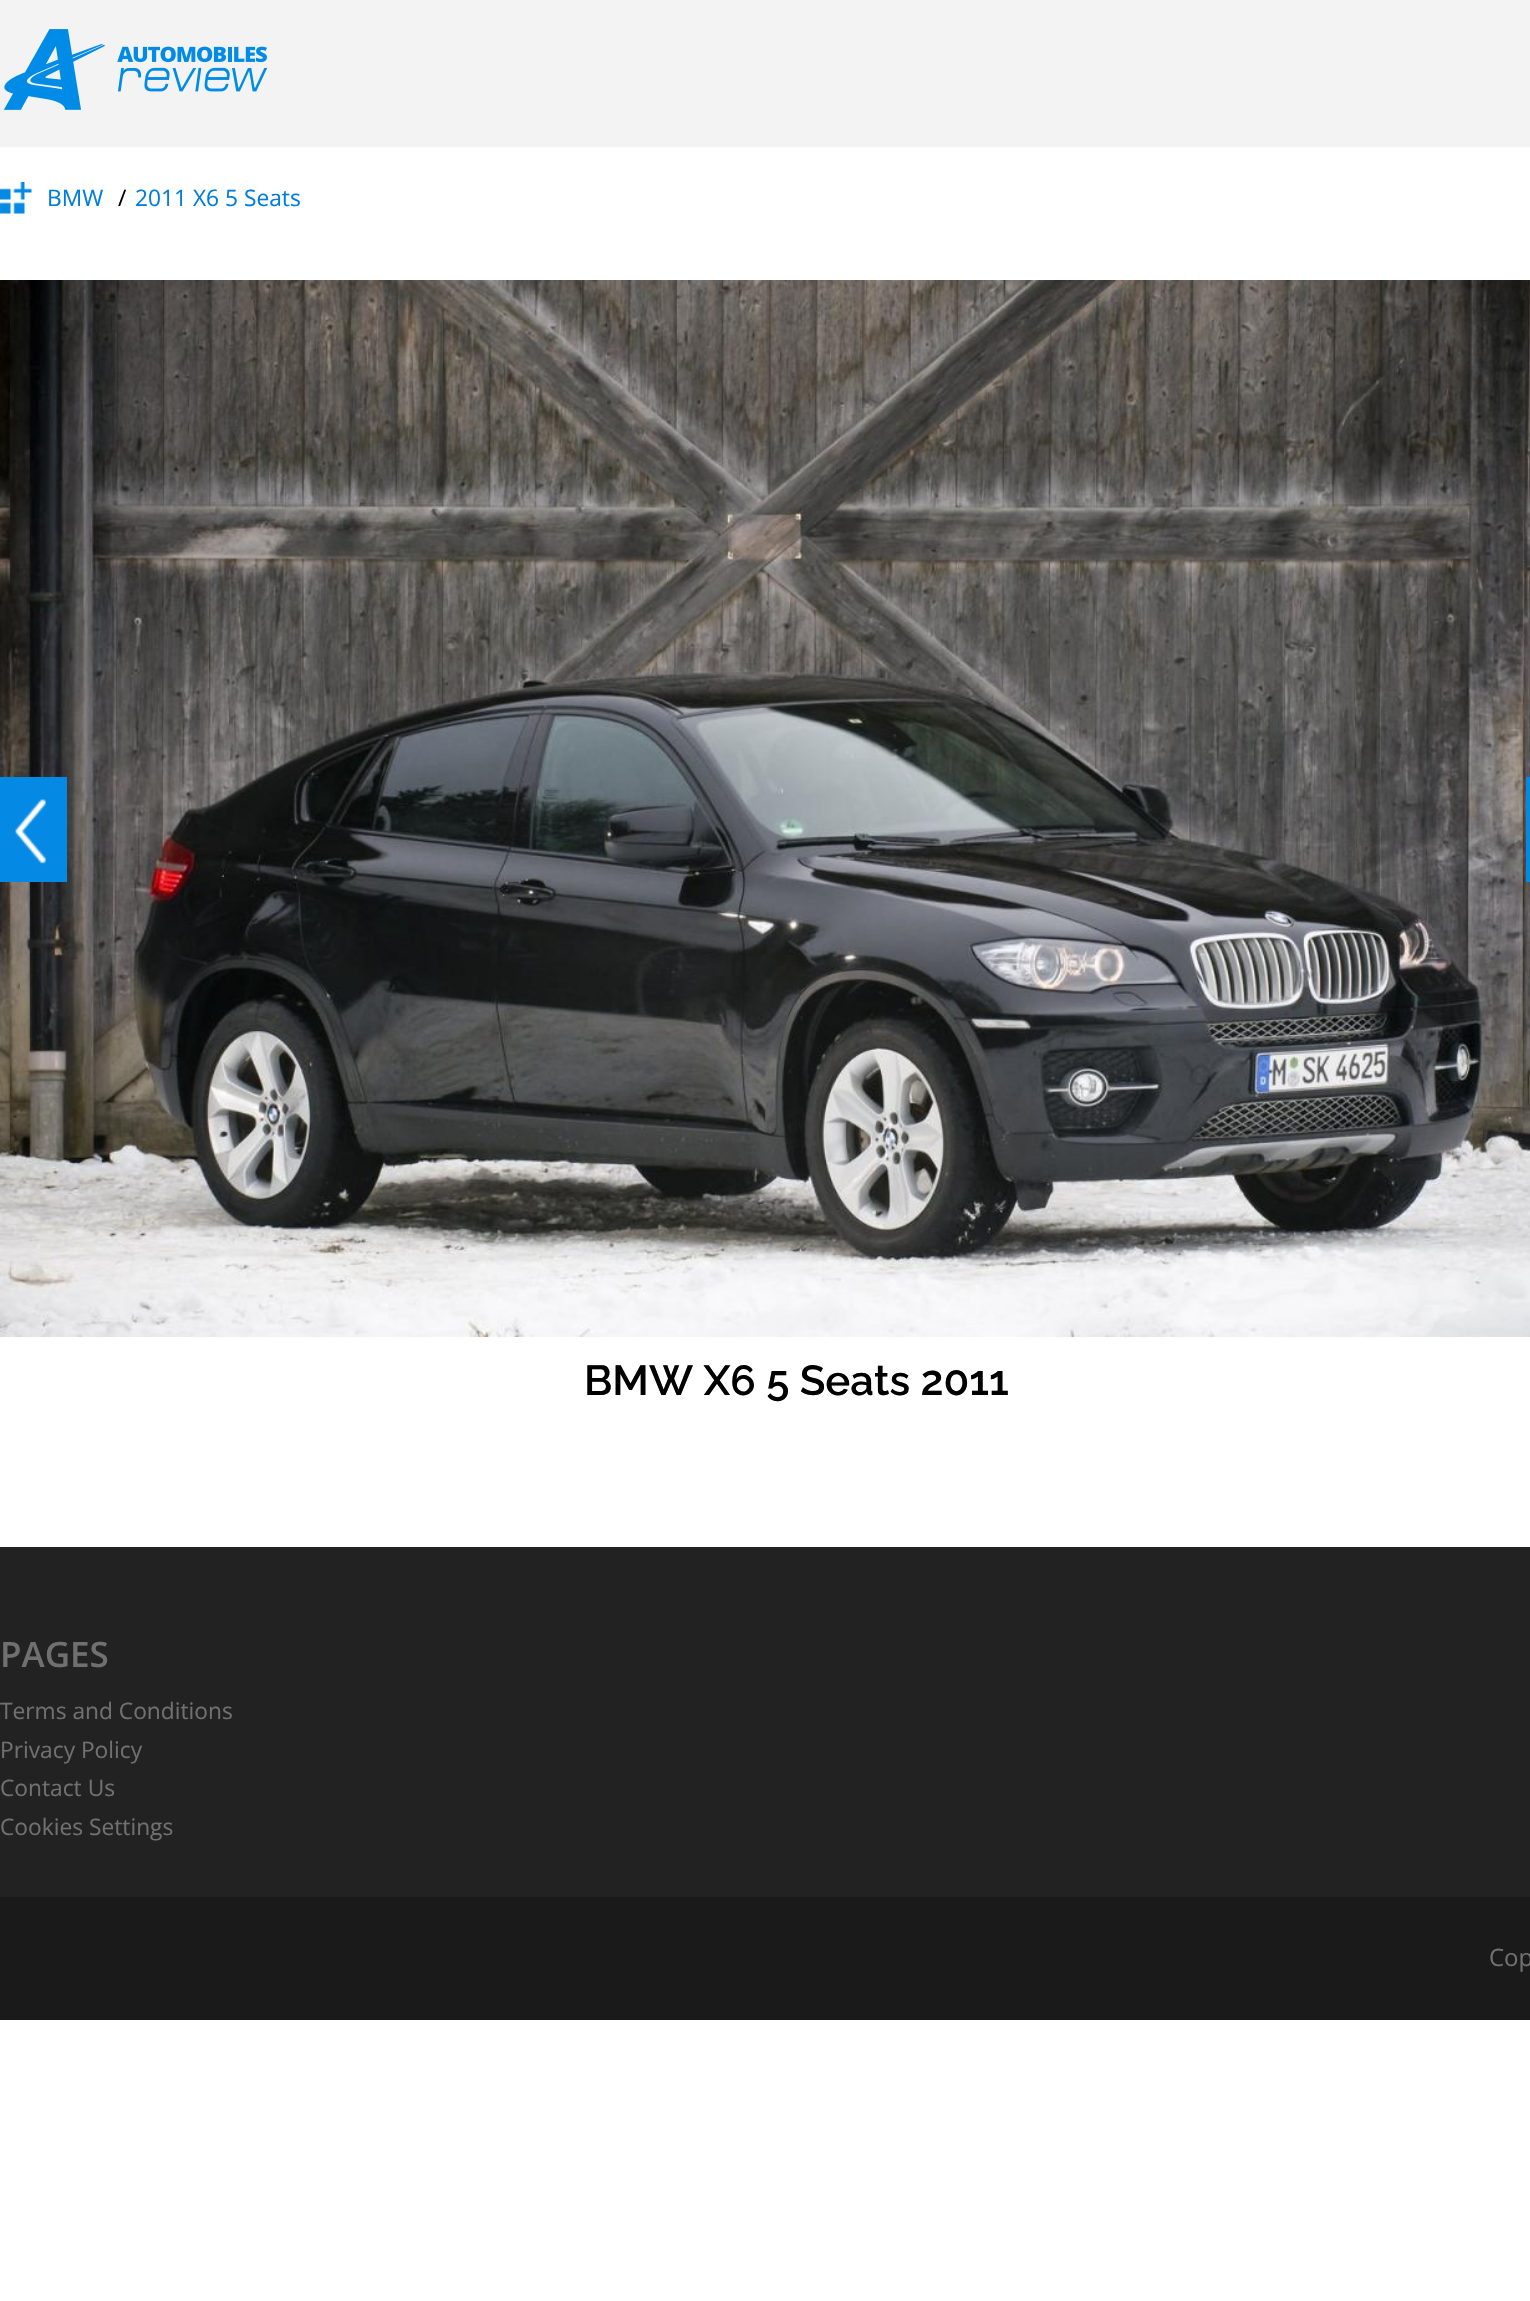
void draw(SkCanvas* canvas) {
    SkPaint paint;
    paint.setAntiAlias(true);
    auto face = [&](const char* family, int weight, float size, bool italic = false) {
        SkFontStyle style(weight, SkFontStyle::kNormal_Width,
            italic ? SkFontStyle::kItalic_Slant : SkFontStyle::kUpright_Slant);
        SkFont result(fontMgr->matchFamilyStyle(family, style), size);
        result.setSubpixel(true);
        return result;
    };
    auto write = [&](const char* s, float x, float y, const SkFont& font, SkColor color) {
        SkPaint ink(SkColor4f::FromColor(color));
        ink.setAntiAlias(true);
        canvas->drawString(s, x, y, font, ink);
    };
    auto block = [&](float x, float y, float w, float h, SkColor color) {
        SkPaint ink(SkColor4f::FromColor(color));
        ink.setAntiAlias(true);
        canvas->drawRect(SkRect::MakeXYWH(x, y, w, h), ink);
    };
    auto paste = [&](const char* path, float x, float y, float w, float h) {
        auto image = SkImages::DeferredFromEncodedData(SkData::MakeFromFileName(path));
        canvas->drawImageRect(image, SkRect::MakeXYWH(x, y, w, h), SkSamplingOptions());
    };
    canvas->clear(SK_ColorWHITE);
    block(0, 0, 1530, 147, SkColorSetRGB(243, 243, 243));
    paste("pic1.png", 3, 29, 265, 81);
    paste("pic2.png", 0, 182, 32, 32);
    auto kFont1 = face("Open Sans", 400, 22.75f);
    write("BMW", 47, 206, kFont1, SkColorSetRGB(0, 126, 224));
    write("/", 118, 206, kFont1, SK_ColorBLACK);
    write("2011 X6 5 Seats", 135, 206, kFont1, SkColorSetRGB(0, 126, 224));
    paste("pic4.png", 0, 280, 1530, 1057);
    block(0, 777, 67, 105, SkColorSetRGB(4, 137, 228));
    paste("pic3.png", 15, 799, 31, 65);
    block(1526, 777, 4, 105, SkColorSetRGB(4, 137, 228));
    auto kFont2 = face("Raleway", 600, 42);
    write("BMW X6 5 Seats 2011", 584, 1395, kFont2, SK_ColorBLACK);
    block(0, 1547, 1530, 350, SkColorSetRGB(34, 34, 34));
    auto kFont3 = face("Open Sans", 600, 35);
    write("PAGES", 0, 1667, kFont3, SkColorSetRGB(112, 112, 112));
    write("Terms and Conditions", 0, 1719, kFont1, SkColorSetRGB(112, 112, 112));
    write("Privacy Policy", 0, 1758, kFont1, SkColorSetRGB(112, 112, 112));
    write("Contact Us", 0, 1796, kFont1, SkColorSetRGB(112, 112, 112));
    write("Cookies Settings", 0, 1835, kFont1, SkColorSetRGB(112, 112, 112));
    block(0, 1897, 1530, 123, SkColorSetRGB(26, 26, 26));
    auto kFont4 = face("Open Sans", 400, 24);
    write("Cop", 1489, 1966, kFont4, SkColorSetRGB(112, 112, 112));
}
